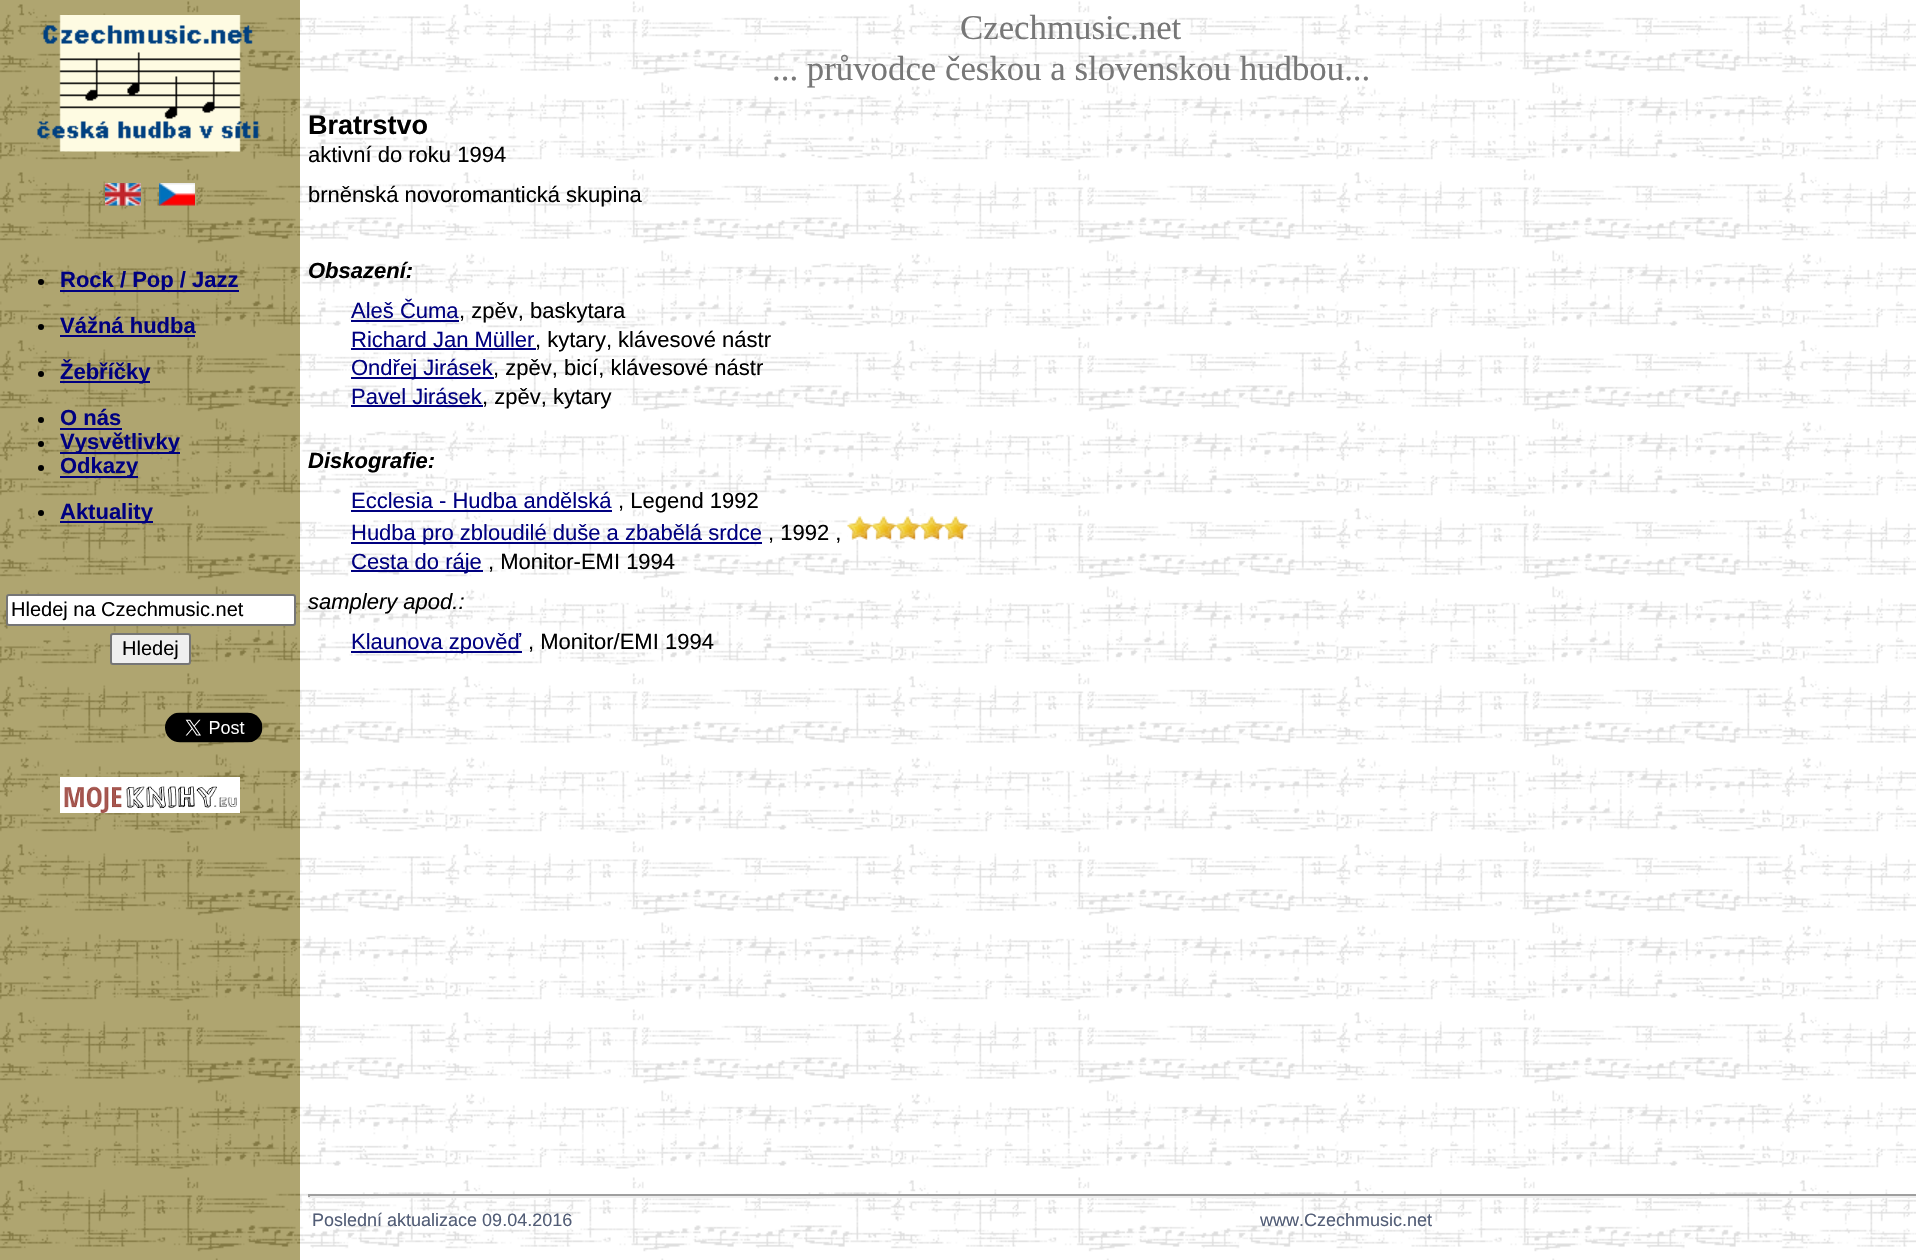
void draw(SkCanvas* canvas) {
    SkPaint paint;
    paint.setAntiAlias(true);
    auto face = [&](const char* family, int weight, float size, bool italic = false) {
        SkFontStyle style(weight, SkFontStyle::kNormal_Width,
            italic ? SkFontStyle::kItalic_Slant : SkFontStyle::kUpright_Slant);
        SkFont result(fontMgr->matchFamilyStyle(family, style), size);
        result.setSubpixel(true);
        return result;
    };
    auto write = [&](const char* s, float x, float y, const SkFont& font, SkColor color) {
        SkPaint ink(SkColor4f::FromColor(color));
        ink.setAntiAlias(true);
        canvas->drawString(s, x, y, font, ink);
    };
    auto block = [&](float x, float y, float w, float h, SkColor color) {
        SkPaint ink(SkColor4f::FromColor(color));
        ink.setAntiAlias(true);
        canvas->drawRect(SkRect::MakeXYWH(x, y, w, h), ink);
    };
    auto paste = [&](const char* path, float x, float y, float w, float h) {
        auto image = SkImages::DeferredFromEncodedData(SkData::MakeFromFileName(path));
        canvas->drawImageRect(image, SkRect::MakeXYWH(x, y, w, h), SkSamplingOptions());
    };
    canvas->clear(SK_ColorWHITE);
    paste("pic1.png", 300, 1, 1616, 1259);
    paste("pic2.png", 0, 0, 300, 1260);
    paste("pic3.png", 37, 15, 222, 137);
    paste("pic4.png", 105, 183, 36, 23);
    paste("pic5.png", 159, 183, 36, 23);
    paint.setColor(SK_ColorBLACK);
    canvas->drawCircle(41, 282, 3, paint);
    block(60, 290, 179, 2, SkColorSetRGB(0, 0, 128));
    auto kFont1 = face("Liberation Sans", 700, 22);
    write("Rock / Pop / Jazz", 60, 287, kFont1, SkColorSetRGB(0, 0, 128));
    canvas->drawCircle(41, 327, 3, paint);
    write("Vážná hudba", 60, 333, kFont1, SkColorSetRGB(0, 0, 128));
    block(60, 335, 135, 2, SkColorSetRGB(0, 0, 128));
    canvas->drawCircle(41, 374, 3, paint);
    block(60, 381, 90, 2, SkColorSetRGB(0, 0, 128));
    write("Žebříčky", 60, 379, kFont1, SkColorSetRGB(0, 0, 128));
    canvas->drawCircle(41, 420, 3, paint);
    write("O nás", 60, 425, kFont1, SkColorSetRGB(0, 0, 128));
    block(60, 428, 62, 2, SkColorSetRGB(0, 0, 128));
    canvas->drawCircle(41, 444, 3, paint);
    block(60, 452, 120, 2, SkColorSetRGB(0, 0, 128));
    write("Vysvětlivky", 60, 449, kFont1, SkColorSetRGB(0, 0, 128));
    canvas->drawCircle(41, 468, 3, paint);
    block(60, 476, 78, 2, SkColorSetRGB(0, 0, 128));
    write("Odkazy", 60, 473, kFont1, SkColorSetRGB(0, 0, 128));
    canvas->drawCircle(41, 513, 3, paint);
    block(60, 521, 93, 2, SkColorSetRGB(0, 0, 128));
    write("Aktuality", 60, 519, kFont1, SkColorSetRGB(0, 0, 128));
    paint.setColor(SK_ColorWHITE);
    canvas->drawRoundRect(SkRect::MakeXYWH(7, 595, 288, 30), 2, 2, paint);
    paint.setStyle(SkPaint::kStroke_Style);
    paint.setStrokeWidth(2);
    paint.setColor(SkColorSetRGB(118, 118, 118));
    canvas->drawRoundRect(SkRect::MakeXYWH(7, 595, 288, 30), 2, 2, paint);
    auto kFont2 = face("Liberation Sans", 400, 20);
    write("Hledej na Czechmusic.net", 11, 616, kFont2, SK_ColorBLACK);
    paint.setStyle(SkPaint::kFill_Style);
    paint.setColor(SkColorSetRGB(239, 239, 239));
    canvas->drawRoundRect(SkRect::MakeXYWH(111, 634, 79, 30), 2, 2, paint);
    paint.setStyle(SkPaint::kStroke_Style);
    paint.setColor(SkColorSetRGB(118, 118, 118));
    canvas->drawRoundRect(SkRect::MakeXYWH(111, 634, 79, 30), 2, 2, paint);
    write("Hledej", 122, 655, kFont2, SK_ColorBLACK);
    paste("pic6.png", 165, 712, 98, 31);
    paste("pic7.png", 60, 777, 180, 36);
    auto kFont3 = face("Liberation Serif", 400, 34.8f);
    write("Czechmusic.net", 960, 39, kFont3, SkColorSetRGB(119, 119, 119));
    write("... průvodce českou a slovenskou hudbou...", 772, 80, kFont3, SkColorSetRGB(119, 119, 119));
    auto kFont4 = face("Liberation Sans", 700, 27);
    write("Bratrstvo", 308, 134, kFont4, SK_ColorBLACK);
    auto kFont5 = face("Liberation Sans", 400, 22);
    write("aktivní do roku 1994", 308, 162, kFont5, SK_ColorBLACK);
    write("brněnská novoromantická skupina", 308, 202, kFont5, SK_ColorBLACK);
    auto kFont6 = face("Liberation Sans", 700, 22, true);
    write("Obsazení:", 308, 278, kFont6, SK_ColorBLACK);
    write("Aleš Čuma", 351, 318, kFont5, SkColorSetRGB(0, 0, 128));
    block(351, 320, 108, 2, SkColorSetRGB(0, 0, 128));
    write(", zpěv, baskytara", 459, 318, kFont5, SK_ColorBLACK);
    write("Richard Jan Müller", 351, 347, kFont5, SkColorSetRGB(0, 0, 128));
    block(351, 348, 185, 2, SkColorSetRGB(0, 0, 128));
    write(", kytary, klávesové nástr", 535, 347, kFont5, SK_ColorBLACK);
    block(351, 377, 143, 2, SkColorSetRGB(0, 0, 128));
    write("Ondřej Jirásek", 351, 375, kFont5, SkColorSetRGB(0, 0, 128));
    write(", zpěv, bicí, klávesové nástr", 493, 375, kFont5, SK_ColorBLACK);
    write("Pavel Jirásek", 351, 404, kFont5, SkColorSetRGB(0, 0, 128));
    block(351, 405, 132, 2, SkColorSetRGB(0, 0, 128));
    write(", zpěv, kytary", 482, 404, kFont5, SK_ColorBLACK);
    write("Diskografie:", 308, 468, kFont6, SK_ColorBLACK);
    write("Ecclesia - Hudba andělská", 351, 508, kFont5, SkColorSetRGB(0, 0, 128));
    block(351, 510, 261, 2, SkColorSetRGB(0, 0, 128));
    write(", Legend 1992", 618, 508, kFont5, SK_ColorBLACK);
    block(351, 542, 411, 2, SkColorSetRGB(0, 0, 128));
    write("Hudba pro zbloudilé duše a zbabělá srdce", 351, 540, kFont5, SkColorSetRGB(0, 0, 128));
    write(", 1992 ,", 768, 540, kFont5, SK_ColorBLACK);
    paste("pic8.png", 847, 516, 121, 24);
    block(351, 570, 132, 2, SkColorSetRGB(0, 0, 128));
    write("Cesta do ráje", 351, 569, kFont5, SkColorSetRGB(0, 0, 128));
    write(", Monitor-EMI 1994", 488, 569, kFont5, SK_ColorBLACK);
    auto kFont7 = face("Liberation Sans", 400, 22, true);
    write("samplery apod.:", 308, 609, kFont7, SK_ColorBLACK);
    block(351, 651, 171, 2, SkColorSetRGB(0, 0, 128));
    write("Klaunova zpověď", 351, 649, kFont5, SkColorSetRGB(0, 0, 128));
    write(", Monitor/EMI 1994", 528, 649, kFont5, SK_ColorBLACK);
    block(308, 1194, 1608, 2, SkColorSetRGB(159, 159, 159));
    block(308, 1196, 1608, 2, SkColorSetRGB(238, 238, 238));
    block(308, 1194, 2, 3, SkColorSetRGB(159, 159, 159));
    auto kFont8 = face("Liberation Sans", 400, 18);
    write("Poslední aktualizace 09.04.2016", 312, 1226, kFont8, SkColorSetRGB(82, 93, 118));
    write("www.Czechmusic.net", 1260, 1226, kFont8, SkColorSetRGB(82, 93, 118));
}
